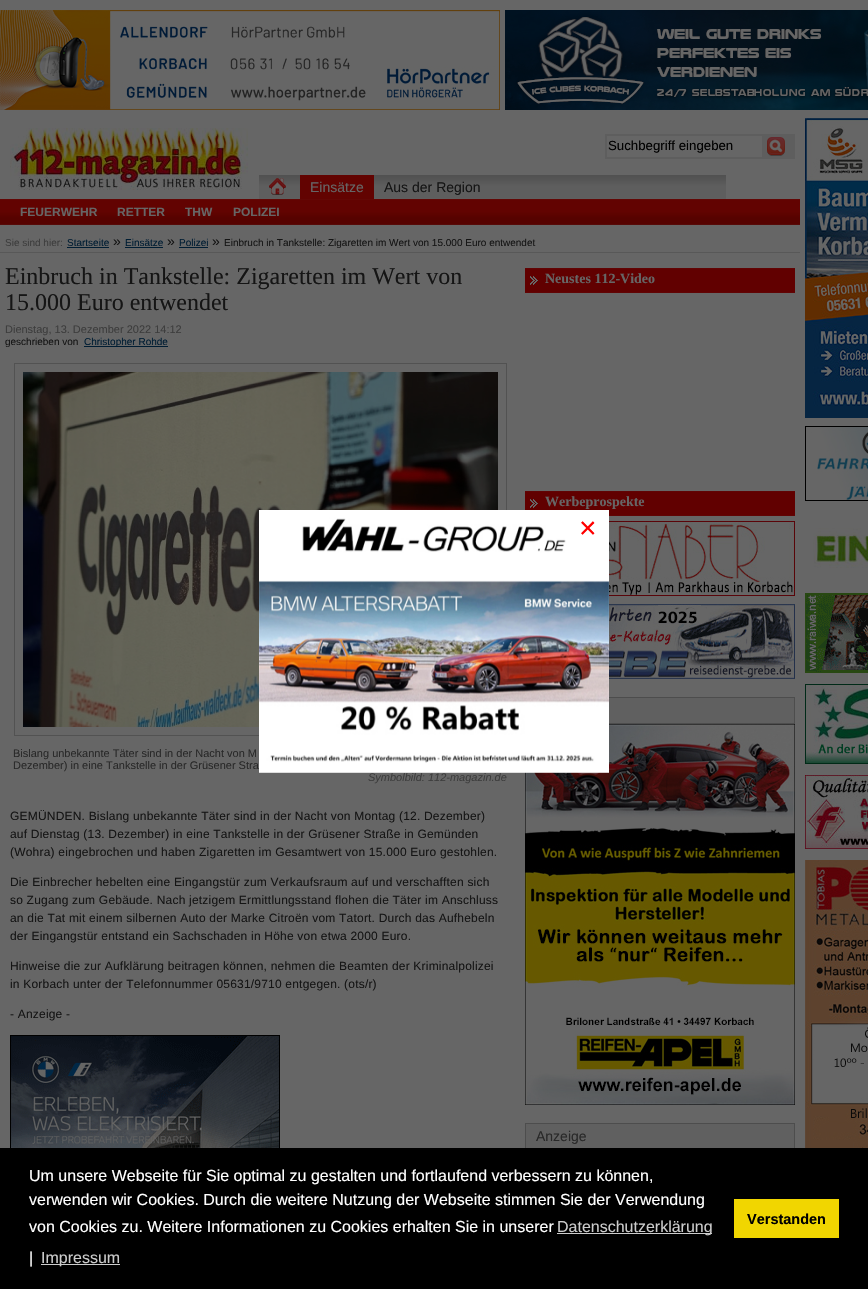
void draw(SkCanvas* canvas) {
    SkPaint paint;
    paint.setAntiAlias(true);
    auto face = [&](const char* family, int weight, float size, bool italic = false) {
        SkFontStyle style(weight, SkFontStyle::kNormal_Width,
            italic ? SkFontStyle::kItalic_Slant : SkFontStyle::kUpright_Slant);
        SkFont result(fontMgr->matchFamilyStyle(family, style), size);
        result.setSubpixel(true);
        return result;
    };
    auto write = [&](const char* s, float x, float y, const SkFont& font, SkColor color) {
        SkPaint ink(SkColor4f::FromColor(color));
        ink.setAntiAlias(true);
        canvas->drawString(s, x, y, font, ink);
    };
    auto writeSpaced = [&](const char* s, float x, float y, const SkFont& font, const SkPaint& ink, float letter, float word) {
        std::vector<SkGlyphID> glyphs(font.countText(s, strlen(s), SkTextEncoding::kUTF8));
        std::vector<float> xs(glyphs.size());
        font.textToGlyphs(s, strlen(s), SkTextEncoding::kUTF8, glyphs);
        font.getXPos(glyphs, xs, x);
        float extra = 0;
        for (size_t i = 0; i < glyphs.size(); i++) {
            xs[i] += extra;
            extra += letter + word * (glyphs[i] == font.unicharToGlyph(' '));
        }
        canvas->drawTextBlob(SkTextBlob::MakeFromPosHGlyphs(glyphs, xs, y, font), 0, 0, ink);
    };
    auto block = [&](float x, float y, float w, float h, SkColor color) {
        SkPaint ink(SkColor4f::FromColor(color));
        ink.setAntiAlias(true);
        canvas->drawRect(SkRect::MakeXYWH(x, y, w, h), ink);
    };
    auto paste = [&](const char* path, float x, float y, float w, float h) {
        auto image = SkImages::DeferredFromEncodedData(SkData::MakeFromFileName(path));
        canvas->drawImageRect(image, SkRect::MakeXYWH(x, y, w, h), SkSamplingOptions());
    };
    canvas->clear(SkColorSetRGB(102, 102, 102));
    paste("pic1.png", 0, 10, 500, 100);
    paste("pic2.png", 505, 10, 363, 100);
    paste("pic3.png", 10, 128, 238, 62);
    paste("pic4.png", 790, 134, 5, 25);
    paste("pic5.png", 605, 134, 185, 25);
    auto kFont1 = face("Liberation Sans", 400, 13.25f);
    write("Suchbegriff eingeben", 608, 150, kFont1, SK_ColorBLACK);
    paste("pic6.png", 0, 175, 800, 50);
    paste("pic7.png", 269, 178, 17, 17);
    block(300, 175, 74, 24, SkColorSetRGB(98, 3, 1));
    auto kFont2 = face("Liberation Sans", 400, 14);
    write("Einsätze", 310, 192, kFont2, SkColorSetRGB(102, 102, 102));
    auto kFont3 = face("Liberation Sans", 700, 12);
    write("FEUERWEHR", 20, 216, kFont3, SkColorSetRGB(102, 102, 102));
    write("RETTER", 117, 216, kFont3, SkColorSetRGB(102, 102, 102));
    write("THW", 185, 216, kFont3, SkColorSetRGB(102, 102, 102));
    write("POLIZEI", 233, 216, kFont3, SkColorSetRGB(102, 102, 102));
    write("Aus der Region", 384, 192, kFont2, SkColorSetRGB(21, 21, 21));
    block(0, 252, 800, 1, SkColorSetRGB(88, 88, 88));
    auto kFont4 = face("Liberation Sans", 400, 10);
    write("Sie sind hier:", 5, 246, kFont4, SkColorSetRGB(61, 61, 61));
    write("Startseite", 67, 246, kFont4, SkColorSetRGB(0, 29, 51));
    block(67, 247, 42, 1, SkColorSetRGB(0, 29, 51));
    write("»", 113, 246, kFont2, SkColorSetRGB(21, 21, 21));
    write("Einsätze", 125, 246, kFont4, SkColorSetRGB(0, 29, 51));
    block(125, 247, 38, 1, SkColorSetRGB(0, 29, 51));
    write("»", 167, 246, kFont2, SkColorSetRGB(21, 21, 21));
    write("Polizei", 179, 246, kFont4, SkColorSetRGB(0, 29, 51));
    block(179, 247, 29, 1, SkColorSetRGB(0, 29, 51));
    write("»", 212, 246, kFont2, SkColorSetRGB(21, 21, 21));
    write("Einbruch in Tankstelle: Zigaretten im Wert von 15.000 Euro entwendet", 224, 246, kFont4, SkColorSetRGB(21, 21, 21));
    auto kFont5 = face("Liberation Serif", 400, 24);
    write("Einbruch in Tankstelle: Zigaretten im Wert von", 5, 284, kFont5, SkColorSetRGB(21, 21, 21));
    write("15.000 Euro entwendet", 5, 310, kFont5, SkColorSetRGB(21, 21, 21));
    auto kFont6 = face("Liberation Sans", 400, 11);
    write("Dienstag, 13. Dezember 2022 14:12", 5, 333, kFont6, SkColorSetRGB(61, 61, 61));
    write("geschrieben von", 5, 345, kFont4, SkColorSetRGB(21, 21, 21));
    block(84, 346, 84, 1, SkColorSetRGB(0, 29, 51));
    write("Christopher Rohde", 84, 345, kFont4, SkColorSetRGB(0, 29, 51));
    paint.setStyle(SkPaint::kStroke_Style);
    paint.setStrokeWidth(1);
    paint.setColor(SkColorSetRGB(82, 82, 82));
    canvas->drawRect(SkRect::MakeXYWH(14.5f, 363.5f, 492, 372), paint);
    paste("pic8.png", 23, 372, 475, 355);
    write("Bislang unbekannte Täter sind in der Nacht von M", 13, 757, kFont6, SkColorSetRGB(41, 41, 41));
    write("Dezember) in eine Tankstelle in der Grüsener Stra", 13, 769, kFont6, SkColorSetRGB(41, 41, 41));
    auto kFont7 = face("Liberation Sans", 400, 11, true);
    write("Symbolbild: 112-magazin.de", 368, 781, kFont7, SkColorSetRGB(61, 61, 61));
    auto kFont8 = face("Liberation Sans", 400, 12);
    paint.setStyle(SkPaint::kFill_Style);
    paint.setColor(SkColorSetRGB(21, 21, 21));
    writeSpaced("GEMÜNDEN. Bislang unbekannte Täter sind in der Nacht von Montag (12. Dezember)", 10, 820, kFont8, paint, 0.2f, 0);
    writeSpaced("auf Dienstag (13. Dezember) in eine Tankstelle in der Grüsener Straße in Gemünden", 10, 838, kFont8, paint, 0.2f, 0);
    writeSpaced("(Wohra) eingebrochen und haben Zigaretten im Gesamtwert von 15.000 Euro gestohlen.", 10, 856, kFont8, paint, 0.2f, 0);
    writeSpaced("Die Einbrecher hebelten eine Eingangstür zum Verkaufsraum auf und verschafften sich", 10, 886, kFont8, paint, 0.2f, 0);
    writeSpaced("so Zugang zum Gebäude. Nach jetzigem Ermittlungsstand flohen die Täter im Anschluss", 10, 904, kFont8, paint, 0.2f, 0);
    writeSpaced("an die Tat mit einem silbernen Auto der Marke Citroën vom Tatort. Durch das Aufhebeln", 10, 922, kFont8, paint, 0.2f, 0);
    writeSpaced("der Eingangstür entstand ein Sachschaden in Höhe von etwa 2000 Euro.", 10, 940, kFont8, paint, 0.2f, 0);
    writeSpaced("Hinweise die zur Aufklärung beitragen können, nehmen die Beamten der Kriminalpolizei", 10, 970, kFont8, paint, 0.2f, 0);
    writeSpaced("in Korbach unter der Telefonnummer 05631/9710 entgegen. (ots/r)", 10, 988, kFont8, paint, 0.2f, 0);
    writeSpaced("- Anzeige -", 10, 1018, kFont8, paint, 0.2f, 0);
    paste("pic9.png", 10, 1035, 270, 113);
    paste("pic10.png", 525, 268, 270, 25);
    auto kFont9 = face("Liberation Serif", 700, 14);
    write("Neustes 112-Video", 545, 283, kFont9, SkColorSetRGB(102, 102, 102));
    paste("pic10.png", 525, 491, 270, 25);
    write("Werbeprospekte", 545, 506, kFont9, SkColorSetRGB(102, 102, 102));
    paste("pic11.png", 609, 521, 186, 75);
    paste("pic12.png", 609, 604, 186, 75);
    block(609, 698, 185, 25, SkColorSetRGB(96, 96, 96));
    paint.setStyle(SkPaint::kStroke_Style);
    paint.setColor(SkColorSetRGB(77, 77, 77));
    canvas->drawRect(SkRect::MakeXYWH(525.5f, 697.5f, 269, 26), paint);
    paste("pic13.png", 525, 724, 270, 381);
    block(526, 1124, 268, 24, SkColorSetRGB(96, 96, 96));
    canvas->drawRect(SkRect::MakeXYWH(525.5f, 1123.5f, 269, 26), paint);
    write("Anzeige", 536, 1141, kFont2, SkColorSetRGB(41, 41, 41));
    paste("pic14.png", 805, 118, 63, 300);
    paste("pic15.png", 805, 426, 63, 75);
    paste("pic16.png", 813, 528, 55, 40);
    paste("pic17.png", 805, 593, 63, 80);
    paste("pic18.png", 805, 684, 63, 80);
    paste("pic19.png", 805, 775, 63, 74);
    paste("pic20.png", 805, 860, 63, 288);
    paste("pic21.png", 259, 510, 350, 263);
    auto kFont10 = face("Liberation Sans", 400, 30);
    write("×", 579, 538, kFont10, SkColorSetRGB(255, 0, 0));
    block(0, 1148, 868, 141, SK_ColorBLACK);
    auto kFont11 = face("Liberation Sans", 400, 16);
    write("Um unsere Webseite für Sie optimal zu gestalten und fortlaufend verbessern zu können,", 29, 1181, kFont11, SK_ColorWHITE);
    write("verwenden wir Cookies. Durch die weitere Nutzung der Webseite stimmen Sie der Verwendung", 29, 1205, kFont11, SK_ColorWHITE);
    write("von Cookies zu. Weitere Informationen zu Cookies erhalten Sie in unserer", 29, 1232, kFont11, SK_ColorWHITE);
    block(557, 1233, 155, 1, SkColorSetRGB(204, 204, 204));
    write("Datenschutzerklärung", 557, 1232, kFont11, SkColorSetRGB(204, 204, 204));
    write("|", 29, 1263, kFont11, SK_ColorWHITE);
    block(41, 1264, 79, 1, SkColorSetRGB(204, 204, 204));
    write("Impressum", 41, 1263, kFont11, SkColorSetRGB(204, 204, 204));
    block(734, 1199, 105, 39, SkColorSetRGB(241, 214, 0));
    auto kFont12 = face("Liberation Sans", 700, 14.5f);
    write("Verstanden", 747, 1224, kFont12, SK_ColorBLACK);
}
